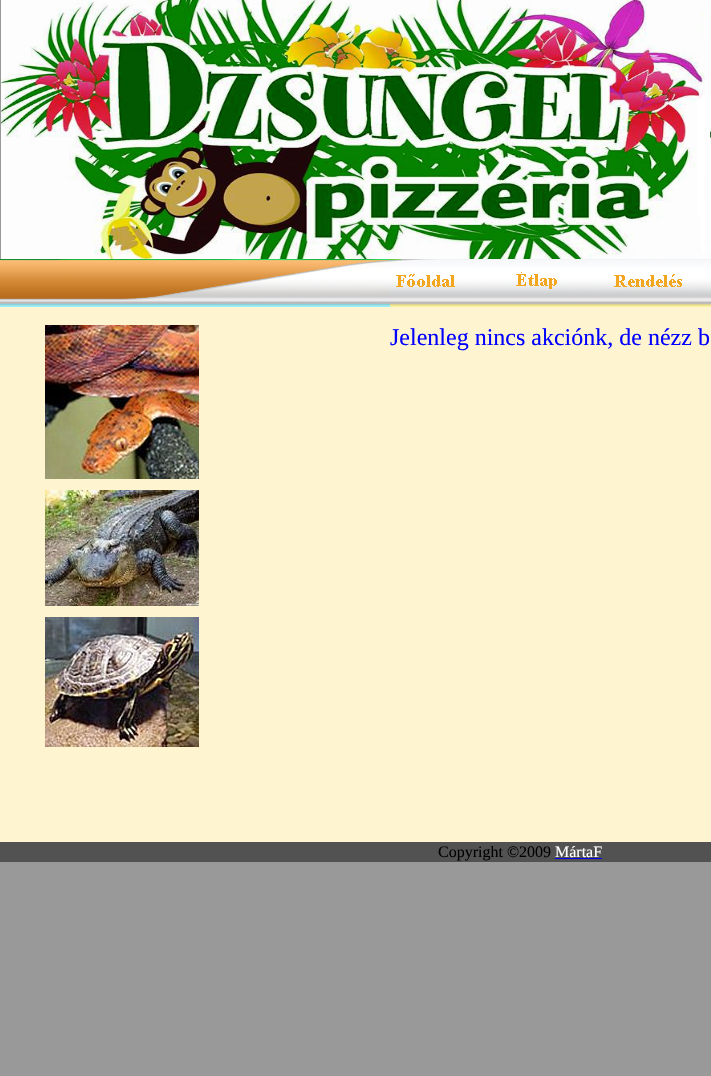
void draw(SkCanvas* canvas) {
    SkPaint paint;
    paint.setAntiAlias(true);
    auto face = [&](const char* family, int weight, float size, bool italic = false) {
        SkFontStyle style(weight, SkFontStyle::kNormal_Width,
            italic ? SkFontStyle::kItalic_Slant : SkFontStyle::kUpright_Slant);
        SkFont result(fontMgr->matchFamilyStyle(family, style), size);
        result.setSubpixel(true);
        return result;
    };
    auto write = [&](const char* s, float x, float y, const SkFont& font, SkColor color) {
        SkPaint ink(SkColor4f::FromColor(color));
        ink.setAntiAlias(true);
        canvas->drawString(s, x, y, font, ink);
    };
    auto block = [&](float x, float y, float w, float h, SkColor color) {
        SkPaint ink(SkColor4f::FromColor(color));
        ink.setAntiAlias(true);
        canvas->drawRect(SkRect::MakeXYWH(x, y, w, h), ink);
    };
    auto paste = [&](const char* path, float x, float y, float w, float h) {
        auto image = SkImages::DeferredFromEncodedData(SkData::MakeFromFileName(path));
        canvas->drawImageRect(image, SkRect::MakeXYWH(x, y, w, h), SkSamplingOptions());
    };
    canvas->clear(SkColorSetRGB(153, 153, 153));
    paste("pic1.png", 1, 0, 710, 259);
    paste("pic2.png", 0, 259, 390, 48);
    paste("pic3.png", 390, 259, 321, 13);
    paste("pic4.png", 390, 272, 70, 17);
    paste("pic5.png", 460, 272, 44, 17);
    paste("pic6.png", 504, 272, 65, 17);
    paste("pic5.png", 569, 272, 44, 17);
    paste("pic7.png", 613, 272, 70, 17);
    paste("pic8.png", 683, 272, 28, 17);
    paste("pic9.png", 390, 289, 321, 18);
    block(0, 307, 711, 535, SkColorSetRGB(255, 244, 208));
    paste("pic10.png", 45, 325, 154, 154);
    paste("pic11.png", 45, 490, 154, 116);
    paste("pic12.png", 45, 617, 154, 130);
    auto kFont1 = face("Liberation Serif", 400, 24);
    write("Jelenleg nincs akciónk, de nézz b", 390, 345, kFont1, SkColorSetRGB(0, 0, 255));
    block(0, 842, 711, 20, SkColorSetRGB(83, 82, 82));
    auto kFont2 = face("Liberation Serif", 400, 16);
    write("Copyright ©2009", 438, 857, kFont2, SK_ColorBLACK);
    write("MártaF", 555, 857, kFont2, SK_ColorWHITE);
    block(555, 858, 47, 1, SkColorSetRGB(0, 0, 238));
}
